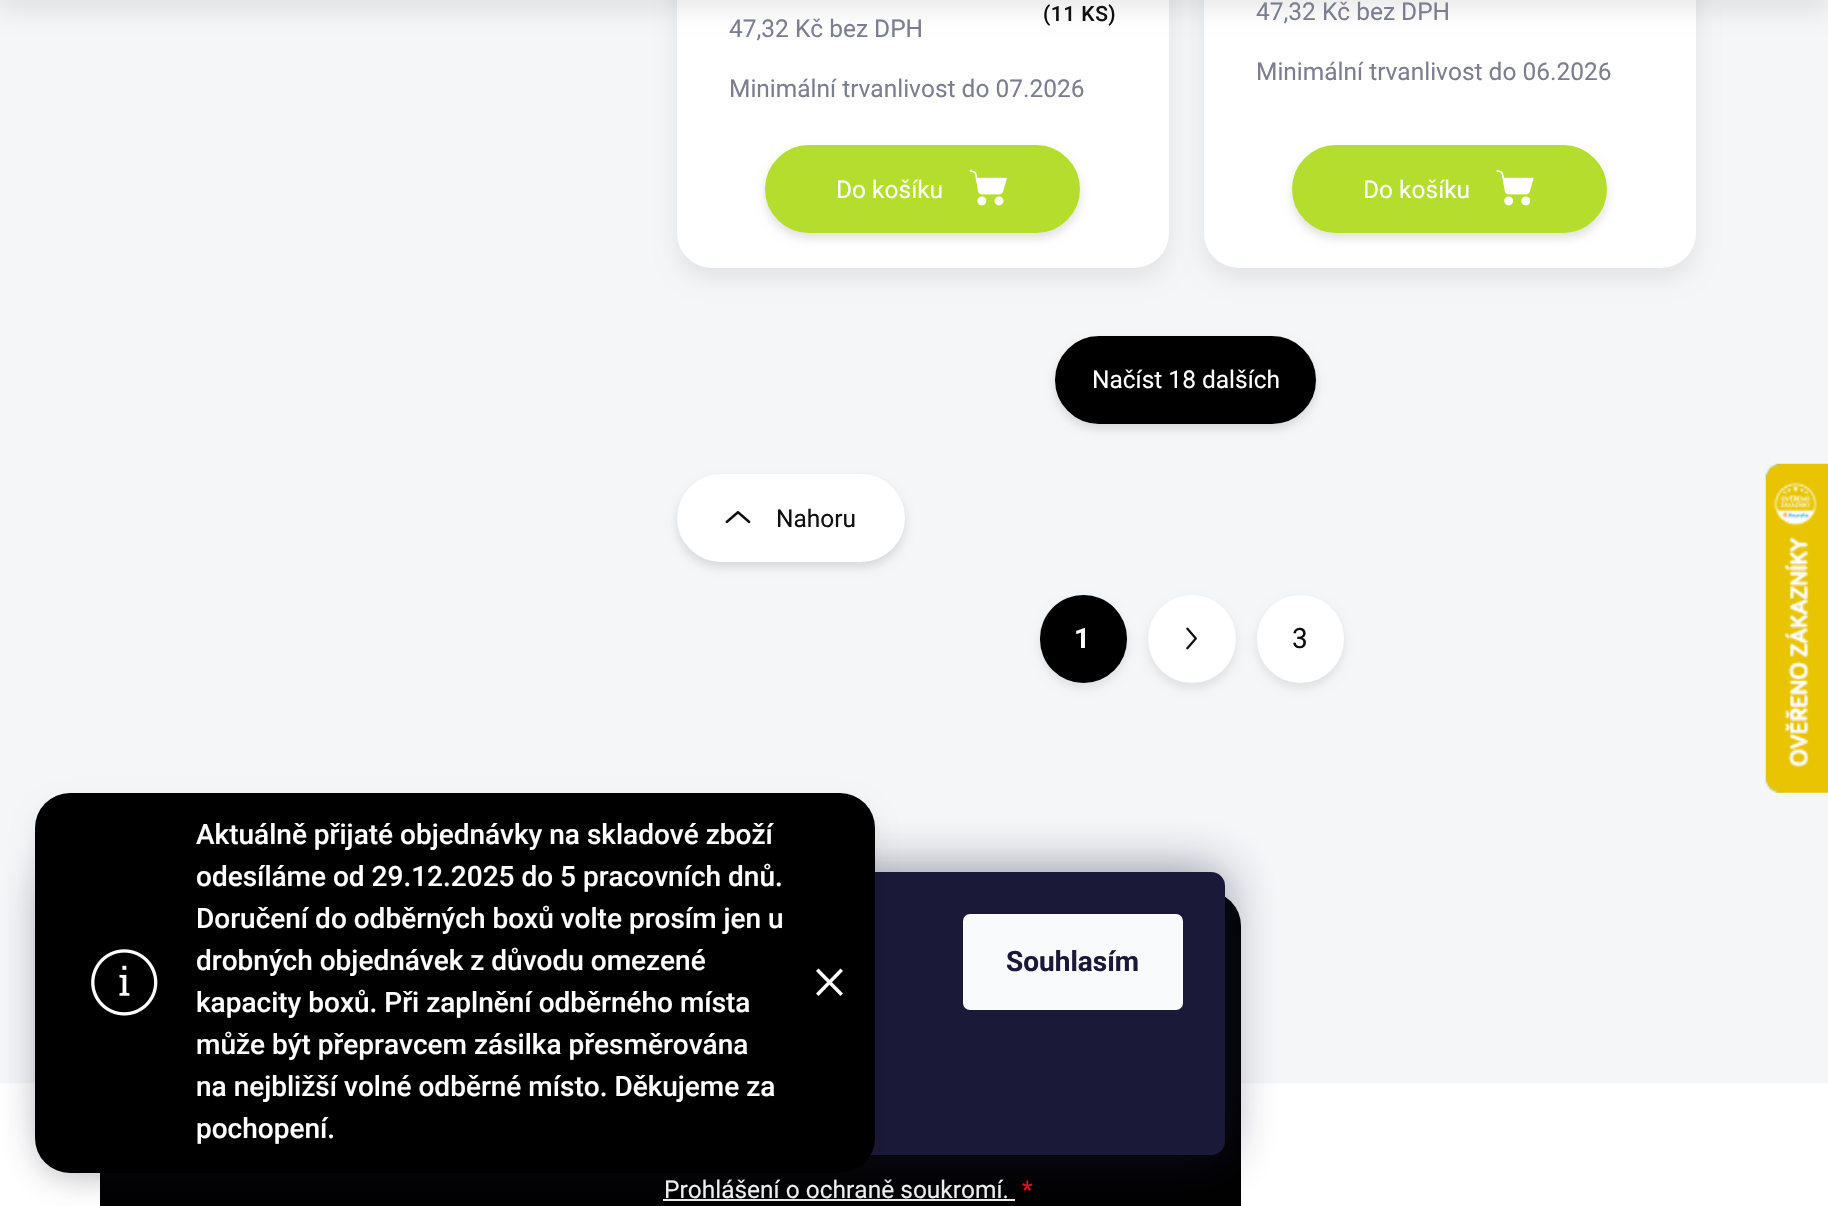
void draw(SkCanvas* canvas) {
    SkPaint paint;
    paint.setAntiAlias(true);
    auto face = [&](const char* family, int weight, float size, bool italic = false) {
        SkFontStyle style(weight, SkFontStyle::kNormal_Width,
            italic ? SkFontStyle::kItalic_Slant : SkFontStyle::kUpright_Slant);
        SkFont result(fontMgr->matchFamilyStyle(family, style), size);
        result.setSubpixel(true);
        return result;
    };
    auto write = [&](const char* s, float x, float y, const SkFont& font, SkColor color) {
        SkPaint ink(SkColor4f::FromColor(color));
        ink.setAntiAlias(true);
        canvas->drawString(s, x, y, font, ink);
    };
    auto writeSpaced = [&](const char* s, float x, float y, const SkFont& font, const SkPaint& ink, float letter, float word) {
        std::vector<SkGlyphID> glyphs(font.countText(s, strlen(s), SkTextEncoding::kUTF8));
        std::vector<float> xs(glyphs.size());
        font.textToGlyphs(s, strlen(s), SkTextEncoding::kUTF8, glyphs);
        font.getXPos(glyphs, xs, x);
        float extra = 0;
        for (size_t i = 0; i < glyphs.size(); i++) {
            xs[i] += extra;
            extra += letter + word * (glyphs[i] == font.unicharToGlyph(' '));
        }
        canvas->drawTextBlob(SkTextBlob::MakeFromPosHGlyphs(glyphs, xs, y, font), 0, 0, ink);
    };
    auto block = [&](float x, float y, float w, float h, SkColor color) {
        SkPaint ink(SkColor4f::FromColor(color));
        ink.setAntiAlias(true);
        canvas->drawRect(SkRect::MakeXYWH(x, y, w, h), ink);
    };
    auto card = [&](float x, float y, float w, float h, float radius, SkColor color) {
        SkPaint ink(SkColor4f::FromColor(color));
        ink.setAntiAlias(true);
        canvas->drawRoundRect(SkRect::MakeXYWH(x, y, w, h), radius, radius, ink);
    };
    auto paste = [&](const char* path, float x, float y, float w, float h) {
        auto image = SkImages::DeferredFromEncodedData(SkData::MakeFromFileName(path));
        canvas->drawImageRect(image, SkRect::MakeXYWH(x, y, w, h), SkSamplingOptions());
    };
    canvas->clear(SkColorSetRGB(245, 246, 248));
    paint.setColor(SkColorSetARGB(20, 0, 0, 0));
    paint.setMaskFilter(SkMaskFilter::MakeBlur(kNormal_SkBlurStyle, 10.5f));
    canvas->drawRoundRect(SkRect::MakeXYWH(677, -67, 492, 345), 35, 35, paint);
    paint.setMaskFilter(nullptr);
    card(677, -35, 492, 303, 35, SK_ColorWHITE);
    paint.setMaskFilter(SkMaskFilter::MakeBlur(kNormal_SkBlurStyle, 10.5f));
    canvas->drawRoundRect(SkRect::MakeXYWH(1204, -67, 492, 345), 35, 35, paint);
    paint.setMaskFilter(nullptr);
    card(1204, -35, 492, 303, 35, SK_ColorWHITE);
    paint.setMaskFilter(SkMaskFilter::MakeBlur(kNormal_SkBlurStyle, 10.5f));
    canvas->drawRect(SkRect::MakeXYWH(0, -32, 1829, 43), paint);
    paint.setMaskFilter(nullptr);
    auto kFont1 = face("Roboto", 500, 21);
    paint.setColor(SkColorSetRGB(15, 15, 15));
    writeSpaced("(11 KS)", 1043, 21, kFont1, paint, 0.5f, 0);
    auto kFont2 = face("Roboto", 400, 24.5f);
    write("47,32 Kč bez DPH", 729, 37, kFont2, SkColorSetRGB(124, 126, 143));
    write("Minimální trvanlivost do 07.2026", 729, 97, kFont2, SkColorSetRGB(124, 126, 143));
    paint.setColor(SkColorSetARGB(31, 0, 0, 0));
    paint.setMaskFilter(SkMaskFilter::MakeBlur(kNormal_SkBlurStyle, 5));
    canvas->drawRoundRect(SkRect::MakeXYWH(765, 151, 315, 87), 43.5f, 43.5f, paint);
    paint.setMaskFilter(nullptr);
    paint.setColor(SkColorSetRGB(181, 221, 45));
    canvas->drawRoundRect(SkRect::MakeXYWH(766, 146, 313, 86), 43, 43, paint);
    paint.setStyle(SkPaint::kStroke_Style);
    paint.setStrokeWidth(2);
    canvas->drawRoundRect(SkRect::MakeXYWH(766, 146, 313, 86), 43, 43, paint);
    write("Do košíku", 836, 198, kFont2, SK_ColorWHITE);
    paste("pic1.png", 969, 170, 38, 36);
    write("47,32 Kč bez DPH", 1256, 20, kFont2, SkColorSetRGB(124, 126, 143));
    write("Minimální trvanlivost do 06.2026", 1256, 80, kFont2, SkColorSetRGB(124, 126, 143));
    paint.setStyle(SkPaint::kFill_Style);
    paint.setColor(SkColorSetARGB(31, 0, 0, 0));
    paint.setMaskFilter(SkMaskFilter::MakeBlur(kNormal_SkBlurStyle, 5));
    canvas->drawRoundRect(SkRect::MakeXYWH(1292, 151, 315, 87), 43.5f, 43.5f, paint);
    paint.setMaskFilter(nullptr);
    paint.setColor(SkColorSetRGB(181, 221, 45));
    canvas->drawRoundRect(SkRect::MakeXYWH(1293, 146, 313, 86), 43, 43, paint);
    paint.setStyle(SkPaint::kStroke_Style);
    canvas->drawRoundRect(SkRect::MakeXYWH(1293, 146, 313, 86), 43, 43, paint);
    write("Do košíku", 1363, 198, kFont2, SK_ColorWHITE);
    paste("pic2.png", 1496, 170, 38, 36);
    paint.setStyle(SkPaint::kFill_Style);
    paint.setColor(SkColorSetARGB(31, 0, 0, 0));
    paint.setMaskFilter(SkMaskFilter::MakeBlur(kNormal_SkBlurStyle, 5));
    canvas->drawRoundRect(SkRect::MakeXYWH(1055, 341, 261, 88), 44, 44, paint);
    paint.setMaskFilter(nullptr);
    paint.setColor(SK_ColorBLACK);
    canvas->drawRoundRect(SkRect::MakeXYWH(1056, 337, 259, 86), 43, 43, paint);
    paint.setStyle(SkPaint::kStroke_Style);
    canvas->drawRoundRect(SkRect::MakeXYWH(1056, 337, 259, 86), 43, 43, paint);
    write("Načíst 18 dalších", 1092, 388, kFont2, SK_ColorWHITE);
    paint.setStyle(SkPaint::kFill_Style);
    paint.setColor(SkColorSetARGB(31, 0, 0, 0));
    paint.setMaskFilter(SkMaskFilter::MakeBlur(kNormal_SkBlurStyle, 5));
    canvas->drawRoundRect(SkRect::MakeXYWH(677, 480, 228, 87), 43.5f, 43.5f, paint);
    paint.setMaskFilter(nullptr);
    paint.setColor(SK_ColorWHITE);
    canvas->drawRoundRect(SkRect::MakeXYWH(678, 475, 226, 86), 43, 43, paint);
    paint.setStyle(SkPaint::kStroke_Style);
    canvas->drawRoundRect(SkRect::MakeXYWH(678, 475, 226, 86), 43, 43, paint);
    paste("pic3.png", 725, 511, 26, 13);
    write("Nahoru", 776, 527, kFont2, SkColorSetRGB(15, 15, 15));
    paint.setStyle(SkPaint::kFill_Style);
    paint.setColor(SkColorSetARGB(23, 0, 0, 0));
    paint.setMaskFilter(SkMaskFilter::MakeBlur(kNormal_SkBlurStyle, 5));
    canvas->drawRoundRect(SkRect::MakeXYWH(1040, 600, 87, 88), 43.5f, 43.5f, paint);
    paint.setMaskFilter(nullptr);
    card(1040, 595, 87, 88, 43.5f, SK_ColorBLACK);
    auto kFont3 = face("Roboto", 700, 28);
    write("1", 1074, 648, kFont3, SK_ColorWHITE);
    paint.setMaskFilter(SkMaskFilter::MakeBlur(kNormal_SkBlurStyle, 5));
    canvas->drawRoundRect(SkRect::MakeXYWH(1148, 600, 88, 88), 44, 44, paint);
    paint.setMaskFilter(nullptr);
    paint.setColor(SK_ColorWHITE);
    canvas->drawCircle(1192, 639, 44, paint);
    paste("pic4.png", 1186, 627, 11, 23);
    paint.setColor(SkColorSetARGB(23, 0, 0, 0));
    paint.setMaskFilter(SkMaskFilter::MakeBlur(kNormal_SkBlurStyle, 5));
    canvas->drawRoundRect(SkRect::MakeXYWH(1257, 600, 87, 88), 43.5f, 43.5f, paint);
    paint.setMaskFilter(nullptr);
    card(1257, 595, 87, 88, 43.5f, SK_ColorWHITE);
    auto kFont4 = face("Roboto", 400, 28);
    write("3", 1292, 648, kFont4, SkColorSetRGB(15, 15, 15));
    block(0, 1083, 1828, 123, SK_ColorWHITE);
    card(100, 891, 1141, 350, 35, SK_ColorBLACK);
    block(663, 1199, 352, 2, SkColorSetRGB(237, 238, 240));
    paint.setColor(SkColorSetARGB(128, 27, 25, 57));
    paint.setMaskFilter(SkMaskFilter::MakeBlur(kNormal_SkBlurStyle, 26));
    canvas->drawRoundRect(SkRect::MakeXYWH(53, 872, 1172, 283), 14, 14, paint);
    paint.setMaskFilter(nullptr);
    card(53, 872, 1172, 283, 14, SkColorSetRGB(26, 25, 55));
    paint.setColor(SkColorSetARGB(20, 0, 0, 0));
    paint.setMaskFilter(SkMaskFilter::MakeBlur(kNormal_SkBlurStyle, 10.5f));
    canvas->drawRoundRect(SkRect::MakeXYWH(35, 803, 840, 380), 35, 35, paint);
    paint.setMaskFilter(nullptr);
    card(35, 793, 840, 380, 35, SK_ColorBLACK);
    auto kFont5 = face("Roboto", 500, 28);
    write("Aktuálně přijaté objednávky na skladové zboží", 196, 844, kFont5, SK_ColorWHITE);
    write("odesíláme od 29.12.2025 do 5 pracovních dnů.", 196, 886, kFont5, SK_ColorWHITE);
    write("Doručení do odběrných boxů volte prosím jen u", 196, 928, kFont5, SK_ColorWHITE);
    paste("pic5.png", 91, 949, 67, 67);
    write("drobných objednávek z důvodu omezené", 196, 970, kFont5, SK_ColorWHITE);
    write("kapacity boxů. Při zaplnění odběrného místa", 196, 1012, kFont5, SK_ColorWHITE);
    write("může být přepravcem zásilka přesměrována", 196, 1054, kFont5, SK_ColorWHITE);
    write("na nejbližší volné odběrné místo. Děkujeme za", 196, 1096, kFont5, SK_ColorWHITE);
    write("pochopení.", 196, 1138, kFont5, SK_ColorWHITE);
    paint.setColor(SK_ColorWHITE);
    canvas->drawPath(SkPathBuilder().moveTo(840.5f, 968.5f).lineTo(843, 971).lineTo(818.5f, 996).lineTo(816, 993.5f).close().detach(), paint);
    canvas->drawPath(SkPathBuilder().moveTo(818.5f, 968.5f).lineTo(843, 993.5f).lineTo(840.5f, 996).lineTo(816, 971).close().detach(), paint);
    write("Prohlášení o ochraně soukromí.", 664, 1198, kFont2, SkColorSetRGB(237, 238, 240));
    write("*", 1022, 1198, kFont2, SkColorSetRGB(248, 1, 32));
    paste("pic6.png", 1765, 463, 63, 330);
    card(963, 914, 220, 96, 7, SkColorSetRGB(248, 250, 251));
    write("Souhlasím", 1006, 971, kFont3, SkColorSetRGB(26, 25, 55));
}
